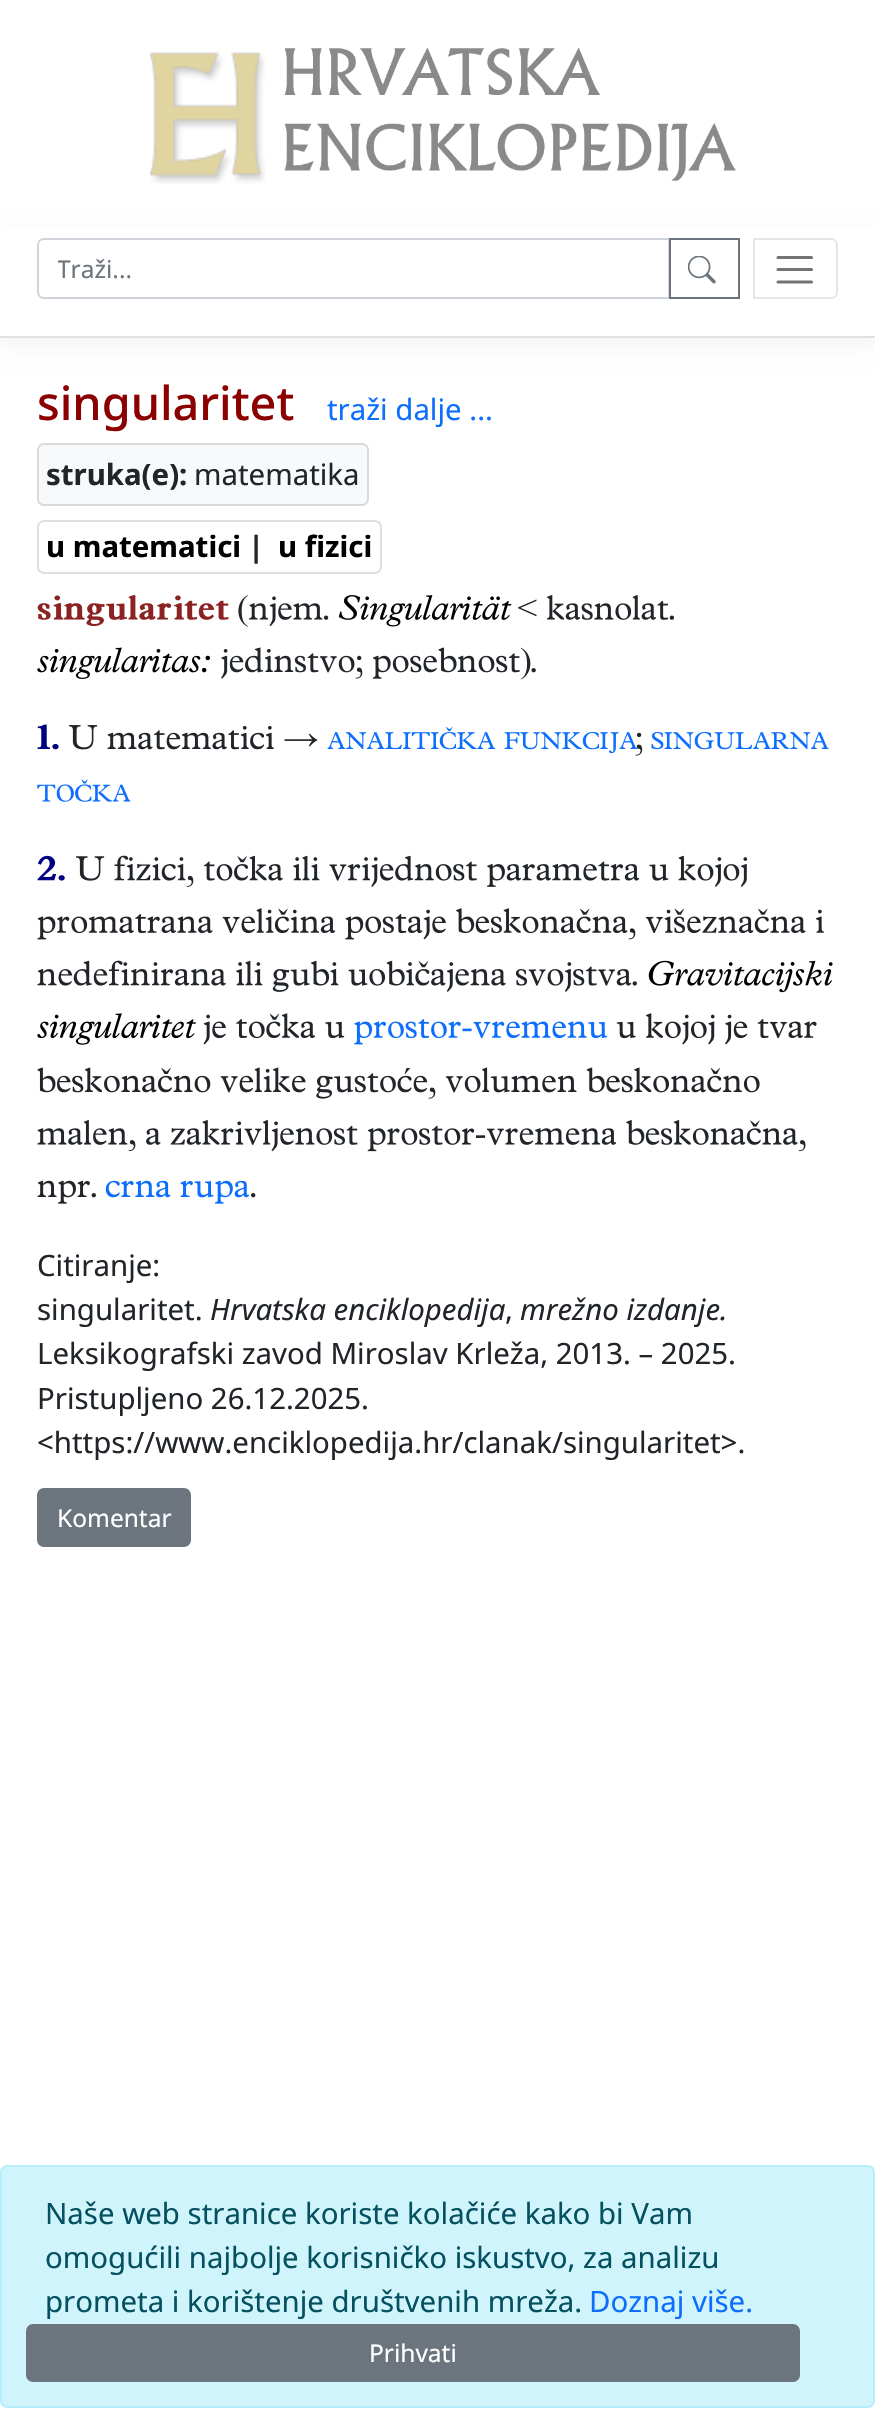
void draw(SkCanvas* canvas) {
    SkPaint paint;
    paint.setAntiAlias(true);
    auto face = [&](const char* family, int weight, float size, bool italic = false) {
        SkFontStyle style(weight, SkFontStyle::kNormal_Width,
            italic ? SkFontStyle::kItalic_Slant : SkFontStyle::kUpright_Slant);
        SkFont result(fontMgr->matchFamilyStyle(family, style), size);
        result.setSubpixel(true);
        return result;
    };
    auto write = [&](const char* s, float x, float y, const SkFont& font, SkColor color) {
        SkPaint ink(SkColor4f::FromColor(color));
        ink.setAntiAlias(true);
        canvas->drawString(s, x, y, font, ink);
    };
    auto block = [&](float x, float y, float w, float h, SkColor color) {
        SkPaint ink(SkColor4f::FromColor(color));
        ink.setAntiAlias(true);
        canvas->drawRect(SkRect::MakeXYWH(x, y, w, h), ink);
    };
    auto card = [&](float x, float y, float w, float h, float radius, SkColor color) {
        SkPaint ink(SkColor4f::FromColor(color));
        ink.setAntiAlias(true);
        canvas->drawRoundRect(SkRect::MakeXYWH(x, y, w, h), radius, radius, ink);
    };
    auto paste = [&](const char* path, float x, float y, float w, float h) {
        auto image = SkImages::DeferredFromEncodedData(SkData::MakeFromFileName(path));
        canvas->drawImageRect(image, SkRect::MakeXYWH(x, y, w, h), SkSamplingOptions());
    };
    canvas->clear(SK_ColorWHITE);
    paste("pic1.png", 149, 52, 117, 132);
    paste("pic2.png", 284, 47, 452, 134);
    paint.setColor(SkColorSetARGB(13, 0, 0, 0));
    paint.setMaskFilter(SkMaskFilter::MakeBlur(kNormal_SkBlurStyle, 9));
    canvas->drawRect(SkRect::MakeXYWH(0, 233, 875, 112), paint);
    paint.setMaskFilter(nullptr);
    block(0, 226, 875, 110, SK_ColorWHITE);
    block(0, 336, 875, 2, SkColorSetRGB(222, 226, 230));
    paint.setStyle(SkPaint::kStroke_Style);
    paint.setStrokeWidth(2);
    paint.setColor(SkColorSetRGB(206, 212, 218));
    canvas->drawPath(SkPathBuilder().moveTo(44, 239).lineTo(669, 239).lineTo(669, 298).lineTo(44, 298).cubicTo(40.5f, 298, 38, 295.5f, 38, 292).lineTo(38, 245).cubicTo(38, 241.5f, 40.5f, 239, 44, 239).close().detach(), paint);
    canvas->save();
    canvas->clipRect(SkRect::MakeXYWH(58, 252, 567, 33));
    auto kFont1 = face("Noto Sans", 400, 24.5f);
    write("Traži...", 57, 278, kFont1, SkColorSetRGB(108, 117, 125));
    canvas->restore();
    paint.setColor(SkColorSetRGB(108, 117, 125));
    canvas->drawRect(SkRect::MakeXYWH(670, 239, 69, 59), paint);
    paste("pic3.png", 688, 256, 28, 28);
    paint.setColor(SkColorSetRGB(230, 230, 230));
    canvas->drawPath(SkPathBuilder().moveTo(754, 239).lineTo(831, 239).cubicTo(834.5f, 239, 837, 241.5f, 837, 245).lineTo(837, 292).cubicTo(837, 295.5f, 834.5f, 298, 831, 298).lineTo(754, 298).close().detach(), paint);
    paint.setStrokeWidth(3.1f);
    paint.setStrokeCap(SkPaint::kRound_Cap);
    paint.setColor(SkColorSetRGB(115, 115, 115));
    canvas->drawPath(SkPathBuilder().moveTo(778, 257.5f).lineTo(811.5f, 257.5f).moveTo(778, 269.5f).lineTo(811.5f, 269.5f).moveTo(778, 282).lineTo(811.5f, 282).detach(), paint);
    auto kFont2 = face("Noto Sans", 500, 46.75f);
    write("singularitet", 37, 420, kFont2, SkColorSetRGB(139, 0, 0));
    auto kFont3 = face("Noto Sans", 400, 29.4f);
    write("traži dalje ...", 327, 420, kFont3, SkColorSetRGB(13, 110, 253));
    card(37, 443, 332, 63, 7, SkColorSetRGB(248, 249, 250));
    paint.setStrokeWidth(2);
    paint.setStrokeCap(SkPaint::kButt_Cap);
    paint.setColor(SkColorSetARGB(31, 0, 0, 0));
    canvas->drawRoundRect(SkRect::MakeXYWH(38, 444, 330, 61), 6, 6, paint);
    auto kFont4 = face("Noto Sans", 700, 29.4f);
    write("struka(e):", 46, 485, kFont4, SkColorSetRGB(33, 37, 41));
    write("matematika", 194, 485, kFont3, SkColorSetRGB(33, 37, 41));
    paint.setColor(SkColorSetRGB(223, 223, 223));
    canvas->drawRoundRect(SkRect::MakeXYWH(38, 521, 343, 52), 6, 6, paint);
    write("u matematici", 46, 557, kFont4, SK_ColorBLACK);
    write("|", 248, 557, kFont4, SkColorSetRGB(33, 37, 41));
    write("u fizici", 278, 557, kFont4, SK_ColorBLACK);
    paste("pic4.png", 37, 595, 192, 32);
    paste("pic5.png", 238, 595, 91, 32);
    paste("pic6.png", 338, 595, 174, 32);
    paste("pic7.png", 518, 595, 156, 25);
    paste("pic8.png", 37, 647, 173, 32);
    paste("pic9.png", 221, 647, 315, 33);
    paste("pic10.png", 37, 724, 22, 26);
    paste("pic11.png", 69, 725, 249, 25);
    paste("pic12.png", 327, 726, 168, 24);
    paste("pic13.png", 504, 731, 134, 23);
    paste("pic14.png", 635, 732, 8, 24);
    paste("pic15.png", 651, 731, 178, 19);
    paste("pic16.png", 37, 779, 94, 23);
    paste("pic17.png", 37, 855, 28, 26);
    paste("pic18.png", 76, 855, 672, 32);
    paste("pic19.png", 37, 908, 787, 32);
    paste("pic20.png", 37, 960, 600, 32);
    paste("pic21.png", 648, 960, 185, 33);
    paste("pic22.png", 37, 1013, 159, 32);
    paste("pic23.png", 203, 1013, 142, 32);
    paste("pic24.png", 354, 1019, 254, 26);
    paste("pic25.png", 616, 1013, 201, 32);
    paste("pic26.png", 37, 1067, 723, 32);
    paste("pic27.png", 37, 1120, 769, 32);
    paste("pic28.png", 37, 1180, 59, 24);
    paste("pic29.png", 105, 1180, 144, 24);
    paste("pic30.png", 251, 1193, 5, 5);
    write("Citiranje:", 37, 1276, kFont3, SkColorSetRGB(33, 37, 41));
    write("singularitet.", 37, 1320, kFont3, SkColorSetRGB(33, 37, 41));
    auto kFont5 = face("Noto Sans", 400, 29.4f, true);
    write("Hrvatska enciklopedija", 210, 1320, kFont5, SkColorSetRGB(33, 37, 41));
    write(",", 505, 1320, kFont3, SkColorSetRGB(33, 37, 41));
    write("mrežno izdanje.", 520, 1320, kFont5, SkColorSetRGB(33, 37, 41));
    write("Leksikografski zavod Miroslav Krleža, 2013. – 2025.", 37, 1364, kFont3, SkColorSetRGB(33, 37, 41));
    write("Pristupljeno 26.12.2025.", 37, 1409, kFont3, SkColorSetRGB(33, 37, 41));
    write("<https://www.enciklopedija.hr/clanak/singularitet>.", 37, 1453, kFont3, SkColorSetRGB(33, 37, 41));
    paint.setStyle(SkPaint::kFill_Style);
    paint.setColor(SkColorSetRGB(108, 117, 125));
    canvas->drawRoundRect(SkRect::MakeXYWH(38, 1489, 152, 57), 6, 6, paint);
    paint.setStyle(SkPaint::kStroke_Style);
    canvas->drawRoundRect(SkRect::MakeXYWH(38, 1489, 152, 57), 6, 6, paint);
    write("Komentar", 57, 1527, kFont1, SK_ColorWHITE);
    paint.setStyle(SkPaint::kFill_Style);
    paint.setColor(SkColorSetRGB(207, 244, 252));
    canvas->drawRoundRect(SkRect::MakeXYWH(1, 2166, 873, 241), 6, 6, paint);
    paint.setStyle(SkPaint::kStroke_Style);
    paint.setColor(SkColorSetRGB(182, 239, 251));
    canvas->drawRoundRect(SkRect::MakeXYWH(1, 2166, 873, 241), 6, 6, paint);
    write("Naše web stranice koriste kolačiće kako bi Vam", 45, 2224, kFont3, SkColorSetRGB(5, 81, 96));
    write("omogućili najbolje korisničko iskustvo, za analizu", 45, 2268, kFont3, SkColorSetRGB(5, 81, 96));
    write("prometa i korištenje društvenih mreža.", 45, 2312, kFont3, SkColorSetRGB(5, 81, 96));
    write("Doznaj više.", 589, 2312, kFont3, SkColorSetRGB(13, 110, 253));
    paint.setStyle(SkPaint::kFill_Style);
    paint.setColor(SkColorSetRGB(108, 117, 125));
    canvas->drawRoundRect(SkRect::MakeXYWH(27, 2325, 772, 56), 6, 6, paint);
    paint.setStyle(SkPaint::kStroke_Style);
    canvas->drawRoundRect(SkRect::MakeXYWH(27, 2325, 772, 56), 6, 6, paint);
    write("Prihvati", 369, 2362, kFont1, SK_ColorWHITE);
}
